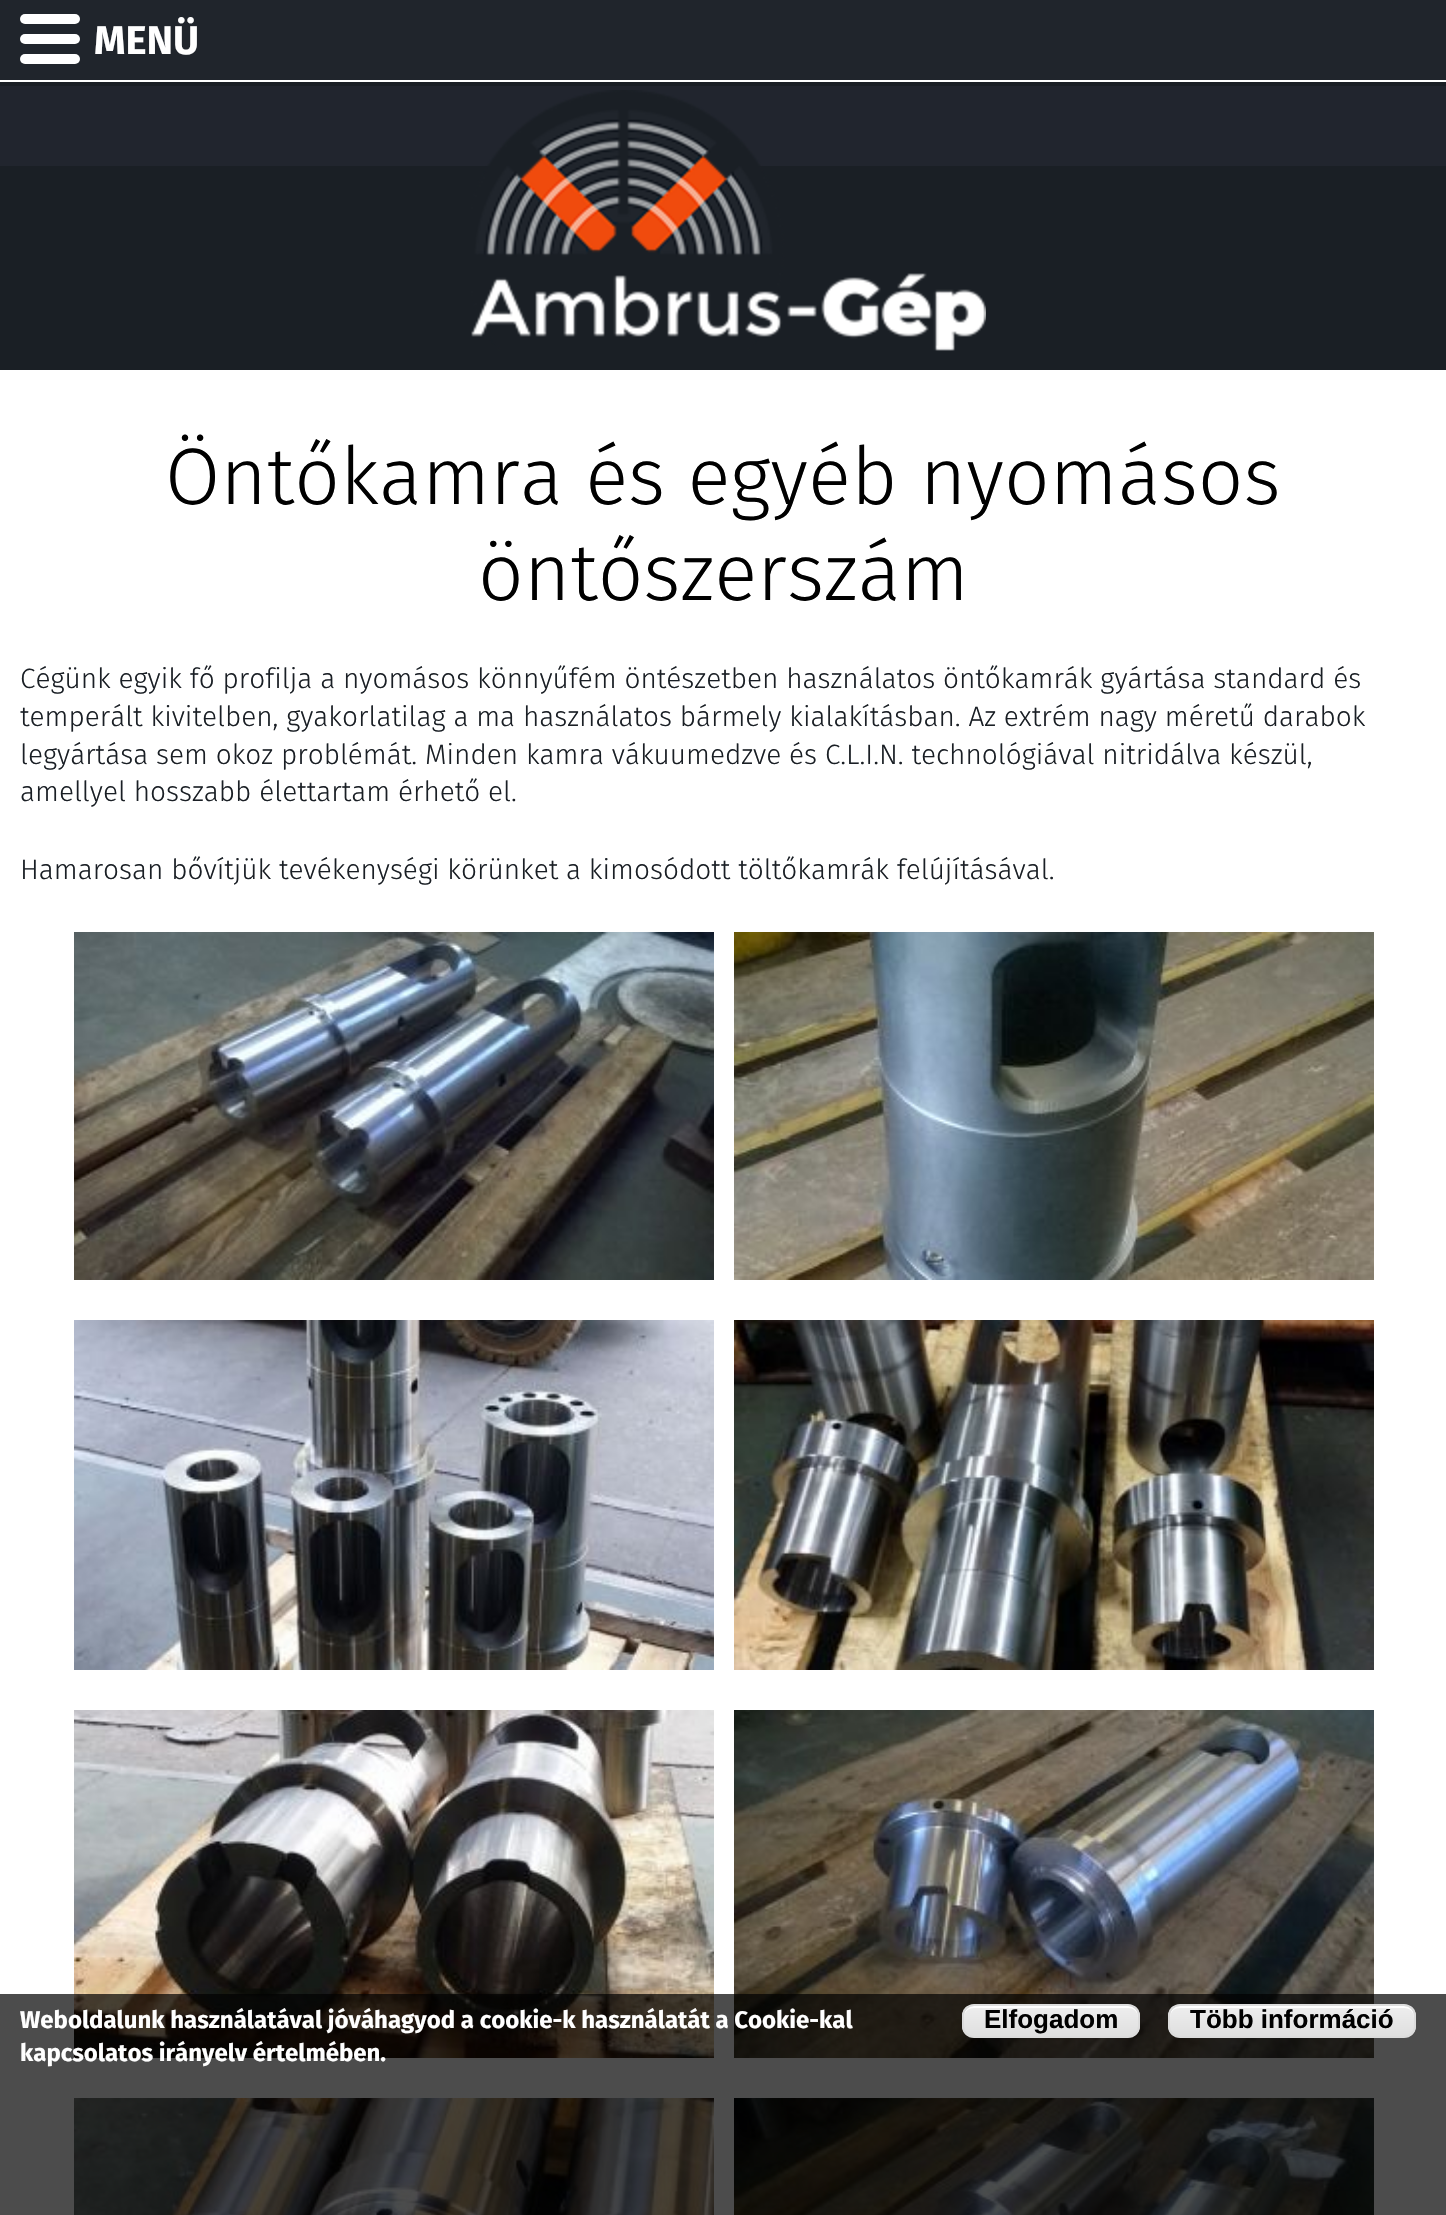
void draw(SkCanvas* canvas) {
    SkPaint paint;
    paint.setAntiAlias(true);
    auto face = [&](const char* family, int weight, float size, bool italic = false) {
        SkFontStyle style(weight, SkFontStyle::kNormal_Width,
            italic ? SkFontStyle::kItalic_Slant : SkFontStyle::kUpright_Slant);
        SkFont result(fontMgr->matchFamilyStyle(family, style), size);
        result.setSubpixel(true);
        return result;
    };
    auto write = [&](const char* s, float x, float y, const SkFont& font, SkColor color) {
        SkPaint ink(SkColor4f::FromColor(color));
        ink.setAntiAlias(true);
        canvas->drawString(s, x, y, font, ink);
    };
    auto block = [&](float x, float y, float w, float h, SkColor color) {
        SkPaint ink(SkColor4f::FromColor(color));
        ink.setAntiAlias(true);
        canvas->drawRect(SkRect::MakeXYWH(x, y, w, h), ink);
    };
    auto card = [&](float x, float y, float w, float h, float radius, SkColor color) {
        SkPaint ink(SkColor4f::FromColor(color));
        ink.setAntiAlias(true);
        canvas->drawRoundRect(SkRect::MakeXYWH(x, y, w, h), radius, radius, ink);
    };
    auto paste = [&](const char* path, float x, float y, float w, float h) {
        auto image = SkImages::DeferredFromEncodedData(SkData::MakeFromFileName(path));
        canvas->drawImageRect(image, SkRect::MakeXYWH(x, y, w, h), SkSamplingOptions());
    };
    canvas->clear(SK_ColorWHITE);
    block(0, 0, 1446, 80, SkColorSetRGB(32, 37, 44));
    card(20, 14, 60, 10, 5, SK_ColorWHITE);
    card(20, 34, 60, 10, 5, SK_ColorWHITE);
    card(20, 54, 60, 10, 5, SK_ColorWHITE);
    auto kFont1 = face("Fira Sans", 700, 40);
    write("MENÜ", 94, 54, kFont1, SK_ColorWHITE);
    block(0, 82, 1446, 288, SkColorSetRGB(26, 31, 37));
    block(0, 86, 1446, 80, SkColorSetRGB(33, 37, 46));
    paste("pic1.png", 471, 90, 515, 261);
    auto kFont2 = face("Fira Sans", 300, 80);
    write("Öntőkamra és egyéb nyomásos", 165, 504, kFont2, SK_ColorBLACK);
    write("öntőszerszám", 478, 600, kFont2, SK_ColorBLACK);
    auto kFont3 = face("Fira Sans", 300, 28);
    write("Cégünk egyik fő profilja a nyomásos könnyűfém öntészetben használatos öntőkamrák gyártása standard és", 20, 688, kFont3, SkColorSetRGB(26, 31, 37));
    write("temperált kivitelben, gyakorlatilag a ma használatos bármely kialakításban. Az extrém nagy méretű darabok", 20, 726, kFont3, SkColorSetRGB(26, 31, 37));
    write("legyártása sem okoz problémát. Minden kamra vákuumedzve és C.L.I.N. technológiával nitridálva készül,", 20, 764, kFont3, SkColorSetRGB(26, 31, 37));
    write("amellyel hosszabb élettartam érhető el.", 20, 801, kFont3, SkColorSetRGB(26, 31, 37));
    write("Hamarosan bővítjük tevékenységi körünket a kimosódott töltőkamrák felújításával.", 20, 879, kFont3, SkColorSetRGB(26, 31, 37));
    paste("pic2.png", 74, 932, 640, 348);
    paste("pic3.png", 734, 932, 640, 348);
    paste("pic4.png", 74, 1320, 640, 350);
    paste("pic5.png", 734, 1320, 640, 350);
    paste("pic6.png", 74, 1710, 640, 348);
    paste("pic7.png", 734, 1710, 640, 348);
    paste("pic8.png", 74, 2098, 640, 117);
    paste("pic9.png", 734, 2098, 640, 117);
    block(0, 1994, 1446, 221, SkColorSetARGB(179, 0, 0, 0));
    auto kFont4 = face("Fira Sans", 700, 24);
    write("Weboldalunk használatával jóváhagyod a cookie-k használatát a Cookie-kal", 20, 2028, kFont4, SK_ColorWHITE);
    write("kapcsolatos irányelv értelmében.", 20, 2061, kFont4, SK_ColorWHITE);
    canvas->save();
    canvas->clipPath(SkPathBuilder().moveTo(974, 2004).lineTo(1128, 2004).cubicTo(1134.5f, 2004, 1140, 2009.5f, 1140, 2016).lineTo(1140, 2026).cubicTo(1140, 2032.5f, 1134.5f, 2038, 1128, 2038).lineTo(974, 2038).cubicTo(967.5f, 2038, 962, 2032.5f, 962, 2026).lineTo(962, 2016).cubicTo(962, 2009.5f, 967.5f, 2004, 974, 2004).close().detach(), true);
    {
        const SkColor colors[] = {SkColorSetRGB(237, 237, 237), SkColorSetRGB(223, 223, 223)};
        const float stops[] = {0.05f, 1};
        const SkPoint ends[] = {{1051, 2006}, {1051, 2036}};
        paint.setShader(SkGradientShader::MakeLinear(ends, colors, stops, 2, SkTileMode::kClamp));
        paint.setAlpha(255);
    }
    canvas->drawRect(SkRect::MakeXYWH(962, 2006, 178, 30), paint);
    canvas->restore();
    paint.setShader(nullptr);
    paint.setColor(SK_ColorWHITE);
    canvas->drawPath(SkPathBuilder().moveTo(974, 2008).lineTo(1128, 2008).cubicTo(1134, 2008, 1138, 2012, 1138, 2018).lineTo(1138, 2016).cubicTo(1138, 2010, 1134, 2006, 1128, 2006).lineTo(974, 2006).cubicTo(968, 2006, 964, 2010, 964, 2016).lineTo(964, 2018).cubicTo(964, 2012, 968, 2008, 974, 2008).close().detach(), paint);
    paint.setStyle(SkPaint::kStroke_Style);
    paint.setStrokeWidth(2);
    paint.setColor(SkColorSetRGB(220, 220, 220));
    canvas->drawRoundRect(SkRect::MakeXYWH(963, 2005, 176, 32), 11, 11, paint);
    auto kFont5 = face("Liberation Sans", 700, 26);
    write("Elfogadom", 984, 2028, kFont5, SK_ColorBLACK);
    canvas->save();
    canvas->clipPath(SkPathBuilder().moveTo(1180, 2004).lineTo(1404, 2004).cubicTo(1410.5f, 2004, 1416, 2009.5f, 1416, 2016).lineTo(1416, 2026).cubicTo(1416, 2032.5f, 1410.5f, 2038, 1404, 2038).lineTo(1180, 2038).cubicTo(1173.5f, 2038, 1168, 2032.5f, 1168, 2026).lineTo(1168, 2016).cubicTo(1168, 2009.5f, 1173.5f, 2004, 1180, 2004).close().detach(), true);
    paint.setStyle(SkPaint::kFill_Style);
    {
        const SkColor colors[] = {SkColorSetRGB(237, 237, 237), SkColorSetRGB(223, 223, 223)};
        const float stops[] = {0.05f, 1};
        const SkPoint ends[] = {{1292, 2006}, {1292, 2036}};
        paint.setShader(SkGradientShader::MakeLinear(ends, colors, stops, 2, SkTileMode::kClamp));
        paint.setAlpha(255);
    }
    canvas->drawRect(SkRect::MakeXYWH(1168, 2006, 248, 30), paint);
    canvas->restore();
    paint.setShader(nullptr);
    paint.setColor(SK_ColorWHITE);
    canvas->drawPath(SkPathBuilder().moveTo(1180, 2008).lineTo(1404, 2008).cubicTo(1410, 2008, 1414, 2012, 1414, 2018).lineTo(1414, 2016).cubicTo(1414, 2010, 1410, 2006, 1404, 2006).lineTo(1180, 2006).cubicTo(1174, 2006, 1170, 2010, 1170, 2016).lineTo(1170, 2018).cubicTo(1170, 2012, 1174, 2008, 1180, 2008).close().detach(), paint);
    paint.setStyle(SkPaint::kStroke_Style);
    paint.setColor(SkColorSetRGB(220, 220, 220));
    canvas->drawRoundRect(SkRect::MakeXYWH(1169, 2005, 246, 32), 11, 11, paint);
    write("Több információ", 1190, 2028, kFont5, SK_ColorBLACK);
}
